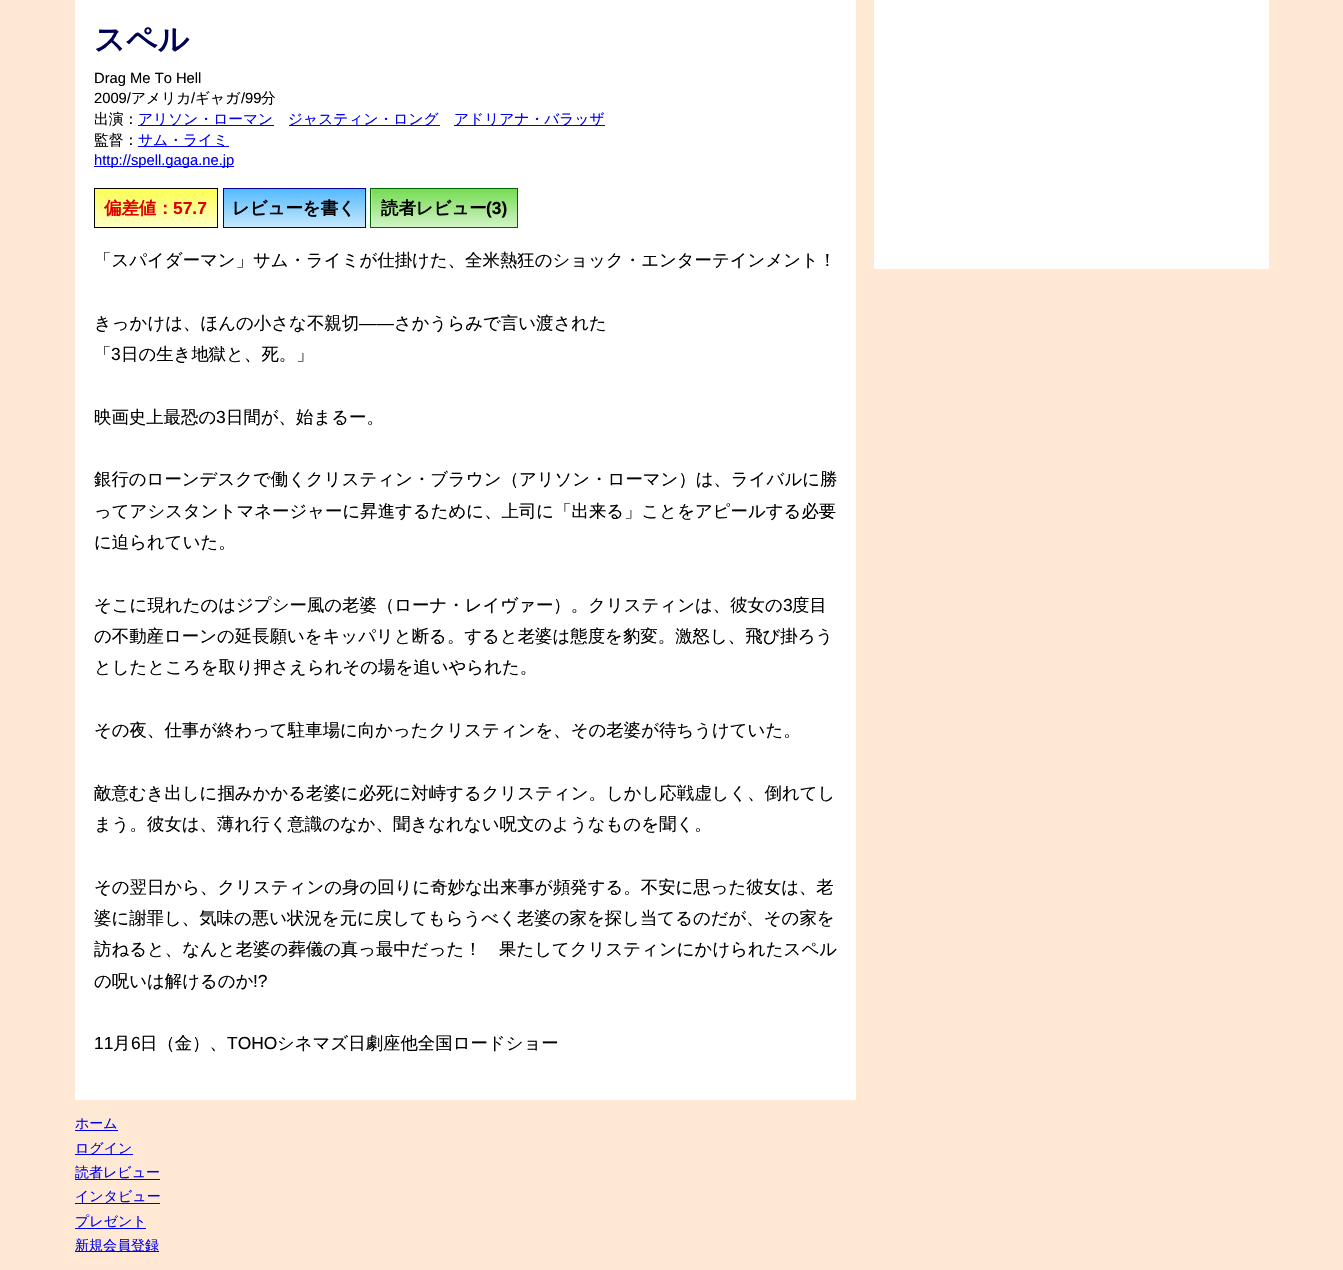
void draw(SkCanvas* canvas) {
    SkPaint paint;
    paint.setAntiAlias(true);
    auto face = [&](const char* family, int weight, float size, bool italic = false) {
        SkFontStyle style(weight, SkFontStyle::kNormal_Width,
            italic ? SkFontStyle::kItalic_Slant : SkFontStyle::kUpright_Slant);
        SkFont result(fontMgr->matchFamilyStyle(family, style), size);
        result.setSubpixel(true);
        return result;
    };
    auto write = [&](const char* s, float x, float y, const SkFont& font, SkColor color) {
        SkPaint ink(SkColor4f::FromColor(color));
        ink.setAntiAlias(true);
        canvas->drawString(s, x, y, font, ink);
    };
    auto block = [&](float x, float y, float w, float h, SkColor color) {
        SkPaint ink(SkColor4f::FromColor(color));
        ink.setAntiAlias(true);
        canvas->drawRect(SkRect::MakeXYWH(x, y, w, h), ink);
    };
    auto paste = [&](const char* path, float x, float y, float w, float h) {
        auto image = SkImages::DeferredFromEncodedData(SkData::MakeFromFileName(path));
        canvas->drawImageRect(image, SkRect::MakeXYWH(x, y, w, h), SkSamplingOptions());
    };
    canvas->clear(SkColorSetRGB(255, 233, 212));
    block(75, 0, 781, 1100, SK_ColorWHITE);
    auto kFont1 = face("WenQuanYi Zen Hei", 700, 31);
    write("スペル", 94, 50, kFont1, SkColorSetRGB(0, 0, 85));
    auto kFont2 = face("Liberation Sans", 400, 14.75f);
    write("Drag Me To Hell", 94, 83, kFont2, SK_ColorBLACK);
    write("2009/", 94, 103, kFont2, SK_ColorBLACK);
    auto kFont3 = face("WenQuanYi Zen Hei", 500, 14.75f);
    write("アメリカ", 131, 103, kFont3, SK_ColorBLACK);
    write("/", 191, 103, kFont2, SK_ColorBLACK);
    write("ギャガ", 195, 103, kFont3, SK_ColorBLACK);
    write("/99", 241, 103, kFont2, SK_ColorBLACK);
    write("分", 261, 103, kFont3, SK_ColorBLACK);
    write("出演：", 94, 124, kFont3, SK_ColorBLACK);
    block(138, 125, 136, 1, SkColorSetRGB(0, 0, 238));
    write("アリソン・ローマン", 138, 124, kFont3, SkColorSetRGB(0, 0, 238));
    block(289, 125, 151, 1, SkColorSetRGB(0, 0, 238));
    write("ジャスティン・ロング", 288, 124, kFont3, SkColorSetRGB(0, 0, 238));
    block(454, 125, 151, 1, SkColorSetRGB(0, 0, 238));
    write("アドリアナ・バラッザ", 454, 124, kFont3, SkColorSetRGB(0, 0, 238));
    write("監督：", 94, 145, kFont3, SK_ColorBLACK);
    block(138, 146, 91, 1, SkColorSetRGB(0, 0, 238));
    write("サム・ライミ", 138, 145, kFont3, SkColorSetRGB(0, 0, 238));
    block(94, 166, 140, 1, SkColorSetRGB(0, 0, 238));
    write("http://spell.gaga.ne.jp", 94, 165, kFont2, SkColorSetRGB(0, 0, 238));
    paste("pic1.png", 95, 189, 122, 38);
    paste("pic2.png", 224, 188, 143, 40);
    paste("pic3.png", 371, 189, 146, 38);
    paint.setStyle(SkPaint::kStroke_Style);
    paint.setStrokeWidth(1);
    paint.setColor(SK_ColorBLACK);
    canvas->drawRect(SkRect::MakeXYWH(94.5f, 188.5f, 123, 39), paint);
    auto kFont4 = face("WenQuanYi Zen Hei", 700, 17.4f);
    write("偏差値：", 104, 214, kFont4, SkColorSetRGB(221, 0, 0));
    auto kFont5 = face("Liberation Sans", 700, 17.4f);
    write("57.7", 173, 214, kFont5, SkColorSetRGB(221, 0, 0));
    paint.setColor(SkColorSetRGB(0, 0, 153));
    canvas->drawRect(SkRect::MakeXYWH(223.5f, 188.5f, 142, 39), paint);
    write("レビューを書く", 232, 214, kFont4, SK_ColorBLACK);
    paint.setColor(SkColorSetRGB(0, 102, 0));
    canvas->drawRect(SkRect::MakeXYWH(370.5f, 188.5f, 147, 39), paint);
    write("読者レビュー", 381, 214, kFont4, SK_ColorBLACK);
    write("(3)", 486, 214, kFont5, SK_ColorBLACK);
    auto kFont6 = face("WenQuanYi Zen Hei", 500, 17.4f);
    write("「スパイダーマン」サム・ライミが仕掛けた、全米熱狂のショック・エンターテインメント！", 94, 266, kFont6, SK_ColorBLACK);
    write("きっかけは、ほんの小さな不親切", 94, 329, kFont6, SK_ColorBLACK);
    auto kFont7 = face("Liberation Sans", 400, 17.4f);
    write("——", 359, 329, kFont7, SK_ColorBLACK);
    write("さかうらみで言い渡された", 394, 329, kFont6, SK_ColorBLACK);
    write("「", 94, 360, kFont6, SK_ColorBLACK);
    write("3", 111, 360, kFont7, SK_ColorBLACK);
    write("日の生き地獄と、死。」", 121, 360, kFont6, SK_ColorBLACK);
    write("映画史上最恐の", 94, 423, kFont6, SK_ColorBLACK);
    write("3", 216, 423, kFont7, SK_ColorBLACK);
    write("日間が、始まるー。", 226, 423, kFont6, SK_ColorBLACK);
    write("銀行のローンデスクで働くクリスティン・ブラウン（アリソン・ローマン）は、ライバルに勝", 94, 485, kFont6, SK_ColorBLACK);
    write("ってアシスタントマネージャーに昇進するために、上司に「出来る」ことをアピールする必要", 94, 517, kFont6, SK_ColorBLACK);
    write("に迫られていた。", 94, 548, kFont6, SK_ColorBLACK);
    write("そこに現れたのはジプシー風の老婆（ローナ・レイヴァー）。クリスティンは、彼女の", 94, 611, kFont6, SK_ColorBLACK);
    write("3", 783, 611, kFont7, SK_ColorBLACK);
    write("度目", 792, 611, kFont6, SK_ColorBLACK);
    write("の不動産ローンの延長願いをキッパリと断る。すると老婆は態度を豹変。激怒し、飛び掛ろう", 94, 642, kFont6, SK_ColorBLACK);
    write("としたところを取り押さえられその場を追いやられた。", 94, 673, kFont6, SK_ColorBLACK);
    write("その夜、仕事が終わって駐車場に向かったクリスティンを、その老婆が待ちうけていた。", 94, 736, kFont6, SK_ColorBLACK);
    write("敵意むき出しに掴みかかる老婆に必死に対峙するクリスティン。しかし応戦虚しく、倒れてし", 94, 799, kFont6, SK_ColorBLACK);
    write("まう。彼女は、薄れ行く意識のなか、聞きなれない呪文のようなものを聞く。", 94, 830, kFont6, SK_ColorBLACK);
    write("その翌日から、クリスティンの身の回りに奇妙な出来事が頻発する。不安に思った彼女は、老", 94, 893, kFont6, SK_ColorBLACK);
    write("婆に謝罪し、気味の悪い状況を元に戻してもらうべく老婆の家を探し当てるのだが、その家を", 94, 924, kFont6, SK_ColorBLACK);
    write("訪ねると、なんと老婆の葬儀の真っ最中だった！　果たしてクリスティンにかけられたスペル", 94, 955, kFont6, SK_ColorBLACK);
    write("の呪いは解けるのか", 94, 987, kFont6, SK_ColorBLACK);
    write("!?", 253, 987, kFont7, SK_ColorBLACK);
    write("11", 94, 1049, kFont7, SK_ColorBLACK);
    write("月", 113, 1049, kFont6, SK_ColorBLACK);
    write("6", 131, 1049, kFont7, SK_ColorBLACK);
    write("日（金）、", 140, 1049, kFont6, SK_ColorBLACK);
    write("TOHO", 227, 1049, kFont7, SK_ColorBLACK);
    write("シネマズ日劇座他全国ロードショー", 277, 1049, kFont6, SK_ColorBLACK);
    block(874, 0, 395, 269, SK_ColorWHITE);
    auto kFont8 = face("WenQuanYi Zen Hei", 500, 14);
    write("ホーム", 75, 1128, kFont8, SkColorSetRGB(0, 0, 238));
    block(75, 1130, 43, 1, SkColorSetRGB(0, 0, 238));
    block(75, 1154, 58, 1, SkColorSetRGB(0, 0, 238));
    write("ログイン", 75, 1153, kFont8, SkColorSetRGB(0, 0, 238));
    write("読者レビュー", 75, 1177, kFont8, SkColorSetRGB(0, 0, 238));
    block(75, 1179, 85, 1, SkColorSetRGB(0, 0, 238));
    write("インタビュー", 75, 1201, kFont8, SkColorSetRGB(0, 0, 238));
    block(75, 1203, 85, 1, SkColorSetRGB(0, 0, 238));
    write("プレゼント", 75, 1226, kFont8, SkColorSetRGB(0, 0, 238));
    block(75, 1228, 71, 1, SkColorSetRGB(0, 0, 238));
    block(75, 1251, 84, 1, SkColorSetRGB(0, 0, 238));
    write("新規会員登録", 75, 1250, kFont8, SkColorSetRGB(0, 0, 238));
}
